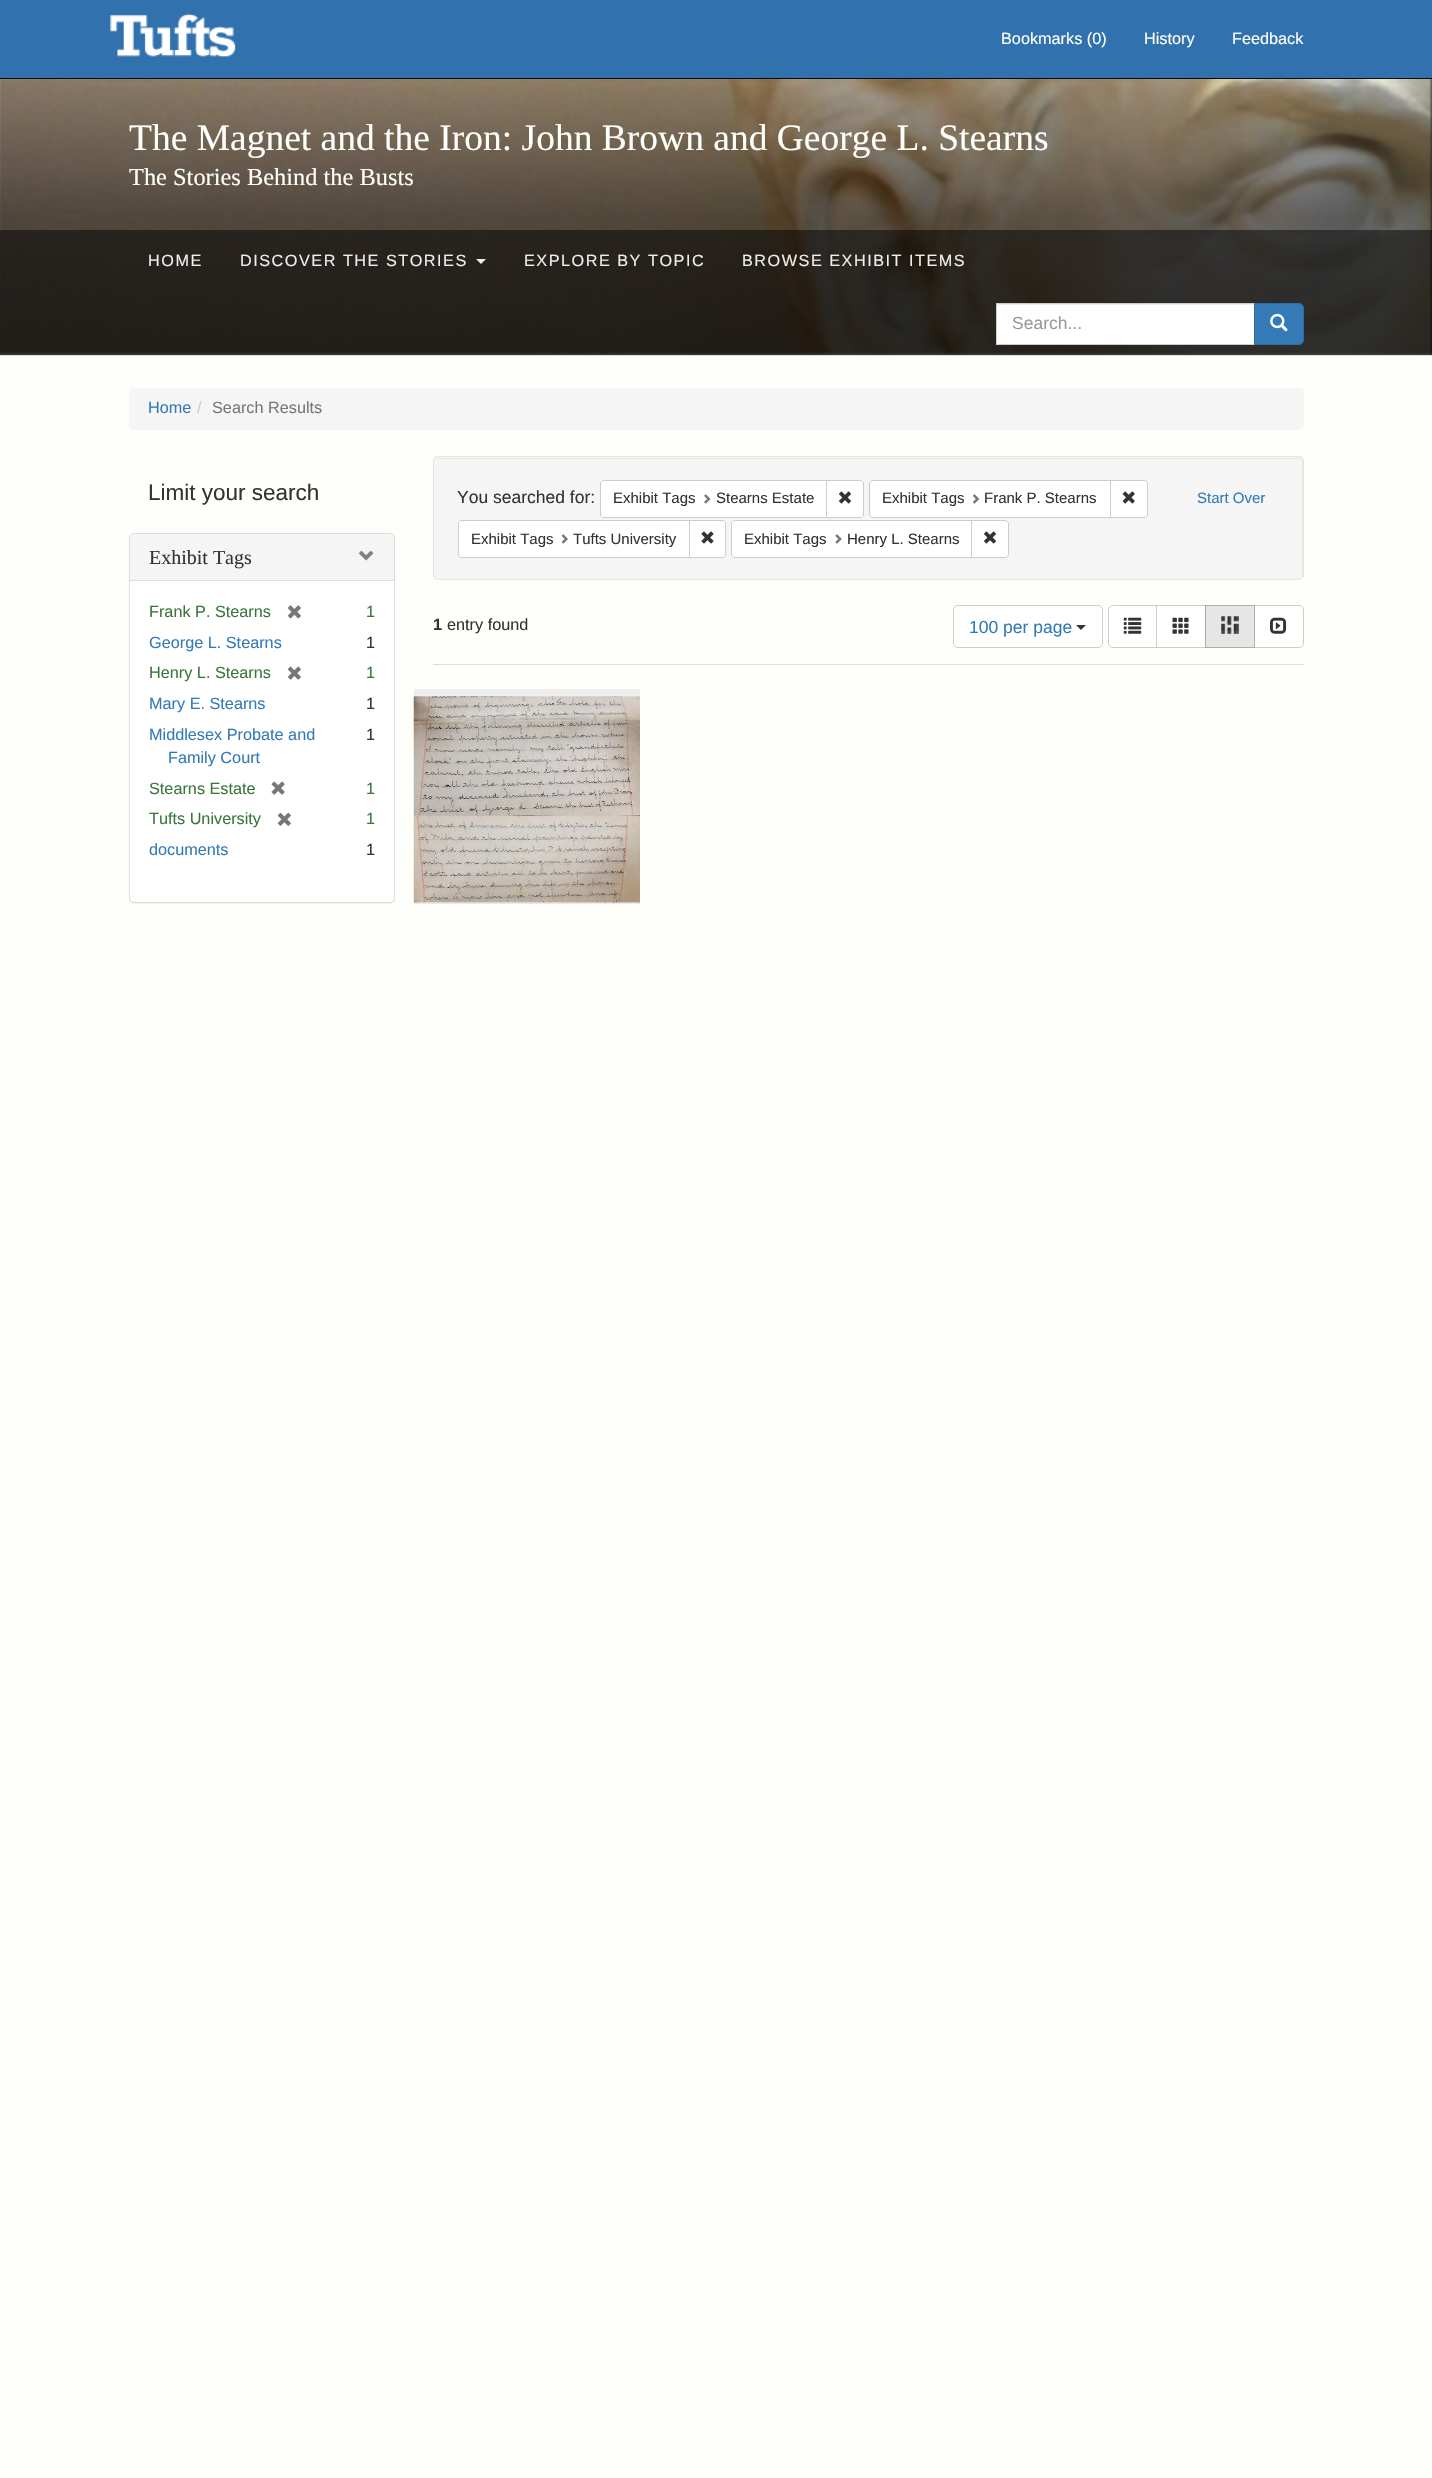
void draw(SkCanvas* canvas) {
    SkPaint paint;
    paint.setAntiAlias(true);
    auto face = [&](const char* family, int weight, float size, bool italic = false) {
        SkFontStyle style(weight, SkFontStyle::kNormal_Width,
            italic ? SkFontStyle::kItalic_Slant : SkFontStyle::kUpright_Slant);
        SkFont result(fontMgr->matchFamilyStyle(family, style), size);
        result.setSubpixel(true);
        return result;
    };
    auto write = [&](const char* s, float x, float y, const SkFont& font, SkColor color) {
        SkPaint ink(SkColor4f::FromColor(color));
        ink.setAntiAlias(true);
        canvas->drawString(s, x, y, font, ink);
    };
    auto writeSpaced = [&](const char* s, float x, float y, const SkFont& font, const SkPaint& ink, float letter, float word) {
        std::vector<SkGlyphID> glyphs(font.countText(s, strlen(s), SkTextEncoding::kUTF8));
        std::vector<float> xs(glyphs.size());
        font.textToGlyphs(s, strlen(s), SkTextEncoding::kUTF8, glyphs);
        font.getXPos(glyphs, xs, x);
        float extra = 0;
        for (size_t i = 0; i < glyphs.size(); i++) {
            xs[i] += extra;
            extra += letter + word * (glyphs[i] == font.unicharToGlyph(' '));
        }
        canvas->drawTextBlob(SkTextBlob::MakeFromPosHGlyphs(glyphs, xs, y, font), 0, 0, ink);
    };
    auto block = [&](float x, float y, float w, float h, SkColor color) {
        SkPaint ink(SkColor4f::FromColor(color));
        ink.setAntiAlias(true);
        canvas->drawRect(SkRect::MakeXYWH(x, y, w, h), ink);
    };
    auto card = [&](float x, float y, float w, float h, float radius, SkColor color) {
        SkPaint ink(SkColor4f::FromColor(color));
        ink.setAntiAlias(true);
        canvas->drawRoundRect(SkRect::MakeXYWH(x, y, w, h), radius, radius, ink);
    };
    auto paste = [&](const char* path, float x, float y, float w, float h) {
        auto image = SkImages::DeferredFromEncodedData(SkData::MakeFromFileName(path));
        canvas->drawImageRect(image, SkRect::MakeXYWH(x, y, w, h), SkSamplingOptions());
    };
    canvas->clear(SkColorSetRGB(254, 254, 250));
    block(0, 79, 1432, 276, SkColorSetRGB(245, 245, 245));
    block(0, 355, 1432, 1, SkColorSetRGB(231, 231, 231));
    paste("pic2.png", 0, 79, 1432, 277);
    paint.setColor(SK_ColorBLACK);
    paint.setMaskFilter(SkMaskFilter::MakeBlur(kNormal_SkBlurStyle, 1));
    canvas->drawRect(SkRect::MakeXYWH(1431, 78, 1, 276), paint);
    paint.setMaskFilter(nullptr);
    block(0, 0, 1432, 78, SkColorSetRGB(49, 114, 174));
    block(0, 78, 1432, 1, SkColorSetRGB(9, 9, 9));
    paste("pic1.png", 110, 13, 126, 44);
    auto kFont1 = face("Liberation Sans", 400, 16.25f);
    write("Bookmarks (0)", 1001, 44, kFont1, SkColorSetRGB(254, 254, 250));
    write("History", 1144, 44, kFont1, SkColorSetRGB(254, 254, 250));
    write("Feedback", 1232, 44, kFont1, SkColorSetRGB(254, 254, 250));
    {
        const SkColor colors[] = {SkColorSetARGB(0, 0, 0, 0), SkColorSetARGB(102, 0, 0, 0), SkColorSetARGB(128, 0, 0, 0)};
        const float stops[] = {0, 0.5f, 1};
        const SkPoint ends[] = {{716, 79}, {716, 355}};
        paint.setShader(SkGradientShader::MakeLinear(ends, colors, stops, 3, SkTileMode::kClamp));
        paint.setAlpha(255);
    }
    canvas->drawRect(SkRect::MakeXYWH(0, 86, 1432, 269), paint);
    auto kFont2 = face("Liberation Serif", 400, 37.5f);
    write("The Magnet and the Iron: John Brown and George L. Stearns", 129, 150, kFont2, SkColorSetRGB(254, 254, 250));
    auto kFont3 = face("Liberation Serif", 400, 24.4f);
    write("The Stories Behind the Busts", 129, 185, kFont3, SkColorSetRGB(254, 254, 250));
    block(0, 230, 1432, 125, SkColorSetARGB(128, 0, 0, 0));
    paint.setShader(nullptr);
    paint.setColor(SkColorSetRGB(238, 238, 238));
    writeSpaced("HOME", 148, 266, kFont1, paint, 1.5f, 0);
    writeSpaced("DISCOVER THE STORIES", 240, 266, kFont1, paint, 1.5f, 0);
    canvas->drawPath(SkPathBuilder().moveTo(476, 259).lineTo(486, 259).lineTo(481, 264).close().detach(), paint);
    writeSpaced("EXPLORE BY TOPIC", 524, 266, kFont1, paint, 1.5f, 0);
    writeSpaced("BROWSE EXHIBIT ITEMS", 742, 266, kFont1, paint, 1.5f, 0);
    block(997, 304, 257, 40, SK_ColorWHITE);
    block(998, 304, 256, 1, SkColorSetRGB(236, 236, 236));
    paint.setStyle(SkPaint::kStroke_Style);
    paint.setStrokeWidth(1);
    paint.setColor(SkColorSetRGB(204, 204, 204));
    canvas->drawRect(SkRect::MakeXYWH(996.5f, 303.5f, 258, 41), paint);
    auto kFont4 = face("Liberation Sans", 400, 17.5f);
    write("Search...", 1012, 329, kFont4, SkColorSetRGB(153, 153, 153));
    paint.setStyle(SkPaint::kFill_Style);
    paint.setColor(SkColorSetRGB(51, 122, 183));
    canvas->drawPath(SkPathBuilder().moveTo(1254.5f, 303.5f).lineTo(1299, 303.5f).cubicTo(1301.5f, 303.5f, 1303.5f, 305.5f, 1303.5f, 308).lineTo(1303.5f, 340).cubicTo(1303.5f, 342.5f, 1301.5f, 344.5f, 1299, 344.5f).lineTo(1254.5f, 344.5f).close().detach(), paint);
    paint.setStyle(SkPaint::kStroke_Style);
    paint.setColor(SkColorSetRGB(46, 109, 164));
    canvas->drawPath(SkPathBuilder().moveTo(1254.5f, 303.5f).lineTo(1299, 303.5f).cubicTo(1301.5f, 303.5f, 1303.5f, 305.5f, 1303.5f, 308).lineTo(1303.5f, 340).cubicTo(1303.5f, 342.5f, 1301.5f, 344.5f, 1299, 344.5f).lineTo(1254.5f, 344.5f).close().detach(), paint);
    paste("pic3.png", 1270, 313, 18, 19);
    card(129, 388, 1175, 42, 5, SkColorSetRGB(245, 245, 245));
    write("Home", 148, 413, kFont1, SkColorSetRGB(51, 122, 183));
    write("/", 197, 413, kFont1, SkColorSetRGB(204, 204, 204));
    write("Search Results", 212, 413, kFont1, SkColorSetRGB(119, 119, 119));
    auto kFont5 = face("Liberation Sans", 400, 22.5f);
    write("Limit your search", 148, 500, kFont5, SkColorSetRGB(51, 51, 51));
    paint.setStyle(SkPaint::kFill_Style);
    paint.setColor(SkColorSetARGB(13, 0, 0, 0));
    paint.setMaskFilter(SkMaskFilter::MakeBlur(kNormal_SkBlurStyle, 0.5f));
    canvas->drawRoundRect(SkRect::MakeXYWH(129, 534, 266, 370), 5, 5, paint);
    paint.setMaskFilter(nullptr);
    paint.setColor(SK_ColorWHITE);
    canvas->drawRoundRect(SkRect::MakeXYWH(129.5f, 533.5f, 265, 369), 4.5f, 4.5f, paint);
    paint.setStyle(SkPaint::kStroke_Style);
    paint.setColor(SkColorSetRGB(221, 221, 221));
    canvas->drawRoundRect(SkRect::MakeXYWH(129.5f, 533.5f, 265, 369), 4.5f, 4.5f, paint);
    paint.setStyle(SkPaint::kFill_Style);
    paint.setColor(SkColorSetRGB(245, 245, 245));
    canvas->drawPath(SkPathBuilder().moveTo(134, 534).lineTo(390, 534).cubicTo(392, 534, 394, 536, 394, 538).lineTo(394, 580).lineTo(130, 580).lineTo(130, 538).cubicTo(130, 536, 132, 534, 134, 534).close().detach(), paint);
    auto kFont6 = face("Liberation Serif", 400, 20);
    write("Exhibit Tags", 149, 564, kFont6, SkColorSetRGB(51, 51, 51));
    paste("pic4.png", 358, 550, 16, 11);
    block(130, 580, 264, 1, SkColorSetRGB(221, 221, 221));
    write("Frank P. Stearns", 149, 617, kFont1, SkColorSetRGB(60, 118, 61));
    paste("pic5.png", 287, 605, 14, 14);
    write("1", 366, 617, kFont1, SkColorSetRGB(60, 118, 61));
    write("George L. Stearns", 149, 648, kFont1, SkColorSetRGB(51, 122, 183));
    write("1", 366, 648, kFont1, SkColorSetRGB(51, 51, 51));
    write("Henry L. Stearns", 149, 678, kFont1, SkColorSetRGB(60, 118, 61));
    paste("pic6.png", 287, 666, 14, 14);
    write("1", 366, 678, kFont1, SkColorSetRGB(60, 118, 61));
    write("Mary E. Stearns", 149, 709, kFont1, SkColorSetRGB(51, 122, 183));
    write("1", 366, 709, kFont1, SkColorSetRGB(51, 51, 51));
    write("Middlesex Probate and", 149, 740, kFont1, SkColorSetRGB(51, 122, 183));
    write("Family Court", 168, 763, kFont1, SkColorSetRGB(51, 122, 183));
    write("1", 366, 740, kFont1, SkColorSetRGB(51, 51, 51));
    write("Stearns Estate", 149, 794, kFont1, SkColorSetRGB(60, 118, 61));
    paste("pic7.png", 271, 781, 14, 14);
    write("1", 366, 794, kFont1, SkColorSetRGB(60, 118, 61));
    write("Tufts University", 149, 824, kFont1, SkColorSetRGB(60, 118, 61));
    paste("pic8.png", 277, 812, 14, 14);
    write("1", 366, 824, kFont1, SkColorSetRGB(60, 118, 61));
    write("documents", 149, 855, kFont1, SkColorSetRGB(51, 122, 183));
    write("1", 366, 855, kFont1, SkColorSetRGB(51, 51, 51));
    card(433, 456, 871, 124, 5, SkColorSetRGB(245, 245, 245));
    paint.setColor(SkColorSetRGB(233, 233, 233));
    canvas->drawPath(SkPathBuilder().moveTo(438, 459).lineTo(1299, 459).cubicTo(1301, 459, 1302, 460, 1302, 462).lineTo(1302, 576).lineTo(1302, 578).cubicTo(1302, 577, 1303, 576, 1303, 575).lineTo(1303, 462).cubicTo(1303, 460, 1301, 458, 1299, 458).lineTo(438, 458).cubicTo(436, 458, 435, 459, 434, 460).cubicTo(435, 459, 436, 459, 438, 459).close().detach(), paint);
    paint.setStyle(SkPaint::kStroke_Style);
    paint.setColor(SkColorSetRGB(227, 227, 227));
    canvas->drawRoundRect(SkRect::MakeXYWH(433.5f, 456.5f, 870, 123), 4.5f, 4.5f, paint);
    write("You searched for:", 457, 503, kFont4, SkColorSetRGB(51, 51, 51));
    paint.setStyle(SkPaint::kFill_Style);
    paint.setColor(SK_ColorWHITE);
    canvas->drawPath(SkPathBuilder().moveTo(604, 480.5f).lineTo(827.5f, 480.5f).lineTo(827.5f, 517.5f).lineTo(604, 517.5f).cubicTo(602, 517.5f, 600.5f, 516, 600.5f, 514).lineTo(600.5f, 484).cubicTo(600.5f, 482, 602, 480.5f, 604, 480.5f).close().detach(), paint);
    paint.setStyle(SkPaint::kStroke_Style);
    paint.setColor(SkColorSetRGB(204, 204, 204));
    canvas->drawPath(SkPathBuilder().moveTo(604, 480.5f).lineTo(827.5f, 480.5f).lineTo(827.5f, 517.5f).lineTo(604, 517.5f).cubicTo(602, 517.5f, 600.5f, 516, 600.5f, 514).lineTo(600.5f, 484).cubicTo(600.5f, 482, 602, 480.5f, 604, 480.5f).close().detach(), paint);
    auto kFont7 = face("Liberation Sans", 400, 15);
    write("Exhibit Tags", 613, 503, kFont7, SkColorSetRGB(51, 51, 51));
    paste("pic9.png", 704, 494, 7, 10);
    write("Stearns Estate", 716, 503, kFont7, SkColorSetRGB(51, 51, 51));
    paint.setStyle(SkPaint::kFill_Style);
    paint.setColor(SK_ColorWHITE);
    canvas->drawPath(SkPathBuilder().moveTo(826.5f, 480.5f).lineTo(860, 480.5f).cubicTo(862, 480.5f, 863.5f, 482, 863.5f, 484).lineTo(863.5f, 514).cubicTo(863.5f, 516, 862, 517.5f, 860, 517.5f).lineTo(826.5f, 517.5f).close().detach(), paint);
    paint.setStyle(SkPaint::kStroke_Style);
    paint.setColor(SkColorSetRGB(204, 204, 204));
    canvas->drawPath(SkPathBuilder().moveTo(826.5f, 480.5f).lineTo(860, 480.5f).cubicTo(862, 480.5f, 863.5f, 482, 863.5f, 484).lineTo(863.5f, 514).cubicTo(863.5f, 516, 862, 517.5f, 860, 517.5f).lineTo(826.5f, 517.5f).close().detach(), paint);
    paste("pic10.png", 838, 491, 14, 13);
    paint.setStyle(SkPaint::kFill_Style);
    paint.setColor(SK_ColorWHITE);
    canvas->drawPath(SkPathBuilder().moveTo(873, 480.5f).lineTo(1110.5f, 480.5f).lineTo(1110.5f, 517.5f).lineTo(873, 517.5f).cubicTo(871, 517.5f, 869.5f, 516, 869.5f, 514).lineTo(869.5f, 484).cubicTo(869.5f, 482, 871, 480.5f, 873, 480.5f).close().detach(), paint);
    paint.setStyle(SkPaint::kStroke_Style);
    paint.setColor(SkColorSetRGB(204, 204, 204));
    canvas->drawPath(SkPathBuilder().moveTo(873, 480.5f).lineTo(1110.5f, 480.5f).lineTo(1110.5f, 517.5f).lineTo(873, 517.5f).cubicTo(871, 517.5f, 869.5f, 516, 869.5f, 514).lineTo(869.5f, 484).cubicTo(869.5f, 482, 871, 480.5f, 873, 480.5f).close().detach(), paint);
    write("Exhibit Tags", 882, 503, kFont7, SkColorSetRGB(51, 51, 51));
    paste("pic11.png", 972, 494, 8, 10);
    write("Frank P. Stearns", 984, 503, kFont7, SkColorSetRGB(51, 51, 51));
    paint.setStyle(SkPaint::kFill_Style);
    paint.setColor(SK_ColorWHITE);
    canvas->drawPath(SkPathBuilder().moveTo(1110.5f, 480.5f).lineTo(1144, 480.5f).cubicTo(1146, 480.5f, 1147.5f, 482, 1147.5f, 484).lineTo(1147.5f, 514).cubicTo(1147.5f, 516, 1146, 517.5f, 1144, 517.5f).lineTo(1110.5f, 517.5f).close().detach(), paint);
    paint.setStyle(SkPaint::kStroke_Style);
    paint.setColor(SkColorSetRGB(204, 204, 204));
    canvas->drawPath(SkPathBuilder().moveTo(1110.5f, 480.5f).lineTo(1144, 480.5f).cubicTo(1146, 480.5f, 1147.5f, 482, 1147.5f, 484).lineTo(1147.5f, 514).cubicTo(1147.5f, 516, 1146, 517.5f, 1144, 517.5f).lineTo(1110.5f, 517.5f).close().detach(), paint);
    paste("pic12.png", 1122, 491, 13, 13);
    write("Start Over", 1197, 503, kFont7, SkColorSetRGB(51, 122, 183));
    paint.setStyle(SkPaint::kFill_Style);
    paint.setColor(SK_ColorWHITE);
    canvas->drawPath(SkPathBuilder().moveTo(462, 520.5f).lineTo(689.5f, 520.5f).lineTo(689.5f, 557.5f).lineTo(462, 557.5f).cubicTo(460, 557.5f, 458.5f, 556, 458.5f, 554).lineTo(458.5f, 524).cubicTo(458.5f, 522, 460, 520.5f, 462, 520.5f).close().detach(), paint);
    paint.setStyle(SkPaint::kStroke_Style);
    paint.setColor(SkColorSetRGB(204, 204, 204));
    canvas->drawPath(SkPathBuilder().moveTo(462, 520.5f).lineTo(689.5f, 520.5f).lineTo(689.5f, 557.5f).lineTo(462, 557.5f).cubicTo(460, 557.5f, 458.5f, 556, 458.5f, 554).lineTo(458.5f, 524).cubicTo(458.5f, 522, 460, 520.5f, 462, 520.5f).close().detach(), paint);
    write("Exhibit Tags", 471, 544, kFont7, SkColorSetRGB(51, 51, 51));
    paste("pic13.png", 561, 534, 7, 10);
    write("Tufts University", 573, 544, kFont7, SkColorSetRGB(51, 51, 51));
    paint.setStyle(SkPaint::kFill_Style);
    paint.setColor(SK_ColorWHITE);
    canvas->drawPath(SkPathBuilder().moveTo(689.5f, 520.5f).lineTo(722, 520.5f).cubicTo(724, 520.5f, 725.5f, 522, 725.5f, 524).lineTo(725.5f, 554).cubicTo(725.5f, 556, 724, 557.5f, 722, 557.5f).lineTo(689.5f, 557.5f).close().detach(), paint);
    paint.setStyle(SkPaint::kStroke_Style);
    paint.setColor(SkColorSetRGB(204, 204, 204));
    canvas->drawPath(SkPathBuilder().moveTo(689.5f, 520.5f).lineTo(722, 520.5f).cubicTo(724, 520.5f, 725.5f, 522, 725.5f, 524).lineTo(725.5f, 554).cubicTo(725.5f, 556, 724, 557.5f, 722, 557.5f).lineTo(689.5f, 557.5f).close().detach(), paint);
    paste("pic14.png", 701, 531, 13, 13);
    paint.setStyle(SkPaint::kFill_Style);
    paint.setColor(SK_ColorWHITE);
    canvas->drawPath(SkPathBuilder().moveTo(735, 520.5f).lineTo(972.5f, 520.5f).lineTo(972.5f, 557.5f).lineTo(735, 557.5f).cubicTo(733, 557.5f, 731.5f, 556, 731.5f, 554).lineTo(731.5f, 524).cubicTo(731.5f, 522, 733, 520.5f, 735, 520.5f).close().detach(), paint);
    paint.setStyle(SkPaint::kStroke_Style);
    paint.setColor(SkColorSetRGB(204, 204, 204));
    canvas->drawPath(SkPathBuilder().moveTo(735, 520.5f).lineTo(972.5f, 520.5f).lineTo(972.5f, 557.5f).lineTo(735, 557.5f).cubicTo(733, 557.5f, 731.5f, 556, 731.5f, 554).lineTo(731.5f, 524).cubicTo(731.5f, 522, 733, 520.5f, 735, 520.5f).close().detach(), paint);
    write("Exhibit Tags", 744, 544, kFont7, SkColorSetRGB(51, 51, 51));
    paste("pic15.png", 835, 534, 7, 10);
    write("Henry L. Stearns", 847, 544, kFont7, SkColorSetRGB(51, 51, 51));
    paint.setStyle(SkPaint::kFill_Style);
    paint.setColor(SK_ColorWHITE);
    canvas->drawPath(SkPathBuilder().moveTo(971.5f, 520.5f).lineTo(1005, 520.5f).cubicTo(1007, 520.5f, 1008.5f, 522, 1008.5f, 524).lineTo(1008.5f, 554).cubicTo(1008.5f, 556, 1007, 557.5f, 1005, 557.5f).lineTo(971.5f, 557.5f).close().detach(), paint);
    paint.setStyle(SkPaint::kStroke_Style);
    paint.setColor(SkColorSetRGB(204, 204, 204));
    canvas->drawPath(SkPathBuilder().moveTo(971.5f, 520.5f).lineTo(1005, 520.5f).cubicTo(1007, 520.5f, 1008.5f, 522, 1008.5f, 524).lineTo(1008.5f, 554).cubicTo(1008.5f, 556, 1007, 557.5f, 1005, 557.5f).lineTo(971.5f, 557.5f).close().detach(), paint);
    paste("pic10.png", 983, 531, 14, 13);
    block(433, 664, 871, 1, SkColorSetRGB(221, 221, 221));
    auto kFont8 = face("Liberation Sans", 700, 16.25f);
    write("1", 433, 630, kFont8, SkColorSetRGB(51, 51, 51));
    write("entry found", 447, 630, kFont1, SkColorSetRGB(51, 51, 51));
    paint.setStyle(SkPaint::kFill_Style);
    paint.setColor(SK_ColorWHITE);
    canvas->drawRoundRect(SkRect::MakeXYWH(953.5f, 605.5f, 149, 42), 4.5f, 4.5f, paint);
    paint.setStyle(SkPaint::kStroke_Style);
    paint.setColor(SkColorSetRGB(204, 204, 204));
    canvas->drawRoundRect(SkRect::MakeXYWH(953.5f, 605.5f, 149, 42), 4.5f, 4.5f, paint);
    write("100 per page", 969, 633, kFont4, SkColorSetRGB(51, 122, 183));
    paint.setStyle(SkPaint::kFill_Style);
    paint.setColor(SkColorSetRGB(51, 51, 51));
    canvas->drawPath(SkPathBuilder().moveTo(1076, 625).lineTo(1086, 625).lineTo(1081, 630).close().detach(), paint);
    paint.setColor(SK_ColorWHITE);
    canvas->drawPath(SkPathBuilder().moveTo(1113, 605.5f).lineTo(1157.5f, 605.5f).lineTo(1157.5f, 647.5f).lineTo(1113, 647.5f).cubicTo(1110.5f, 647.5f, 1108.5f, 645.5f, 1108.5f, 643).lineTo(1108.5f, 610).cubicTo(1108.5f, 607.5f, 1110.5f, 605.5f, 1113, 605.5f).close().detach(), paint);
    paint.setStyle(SkPaint::kStroke_Style);
    paint.setColor(SkColorSetRGB(204, 204, 204));
    canvas->drawPath(SkPathBuilder().moveTo(1113, 605.5f).lineTo(1157.5f, 605.5f).lineTo(1157.5f, 647.5f).lineTo(1113, 647.5f).cubicTo(1110.5f, 647.5f, 1108.5f, 645.5f, 1108.5f, 643).lineTo(1108.5f, 610).cubicTo(1108.5f, 607.5f, 1110.5f, 605.5f, 1113, 605.5f).close().detach(), paint);
    paste("pic16.png", 1123, 617, 19, 17);
    paint.setStyle(SkPaint::kFill_Style);
    paint.setColor(SK_ColorWHITE);
    canvas->drawRect(SkRect::MakeXYWH(1156.5f, 605.5f, 49, 42), paint);
    paint.setStyle(SkPaint::kStroke_Style);
    paint.setColor(SkColorSetRGB(204, 204, 204));
    canvas->drawRect(SkRect::MakeXYWH(1156.5f, 605.5f, 49, 42), paint);
    paste("pic17.png", 1172, 617, 17, 17);
    paint.setStyle(SkPaint::kFill_Style);
    paint.setColor(SK_ColorWHITE);
    canvas->drawPath(SkPathBuilder().moveTo(1254.5f, 605.5f).lineTo(1299, 605.5f).cubicTo(1301.5f, 605.5f, 1303.5f, 607.5f, 1303.5f, 610).lineTo(1303.5f, 643).cubicTo(1303.5f, 645.5f, 1301.5f, 647.5f, 1299, 647.5f).lineTo(1254.5f, 647.5f).close().detach(), paint);
    paint.setStyle(SkPaint::kStroke_Style);
    paint.setColor(SkColorSetRGB(204, 204, 204));
    canvas->drawPath(SkPathBuilder().moveTo(1254.5f, 605.5f).lineTo(1299, 605.5f).cubicTo(1301.5f, 605.5f, 1303.5f, 607.5f, 1303.5f, 610).lineTo(1303.5f, 643).cubicTo(1303.5f, 645.5f, 1301.5f, 647.5f, 1299, 647.5f).lineTo(1254.5f, 647.5f).close().detach(), paint);
    paint.setStyle(SkPaint::kFill_Style);
    paint.setColor(SkColorSetRGB(230, 230, 230));
    canvas->drawRect(SkRect::MakeXYWH(1205.5f, 605.5f, 49, 42), paint);
    paint.setStyle(SkPaint::kStroke_Style);
    paint.setColor(SkColorSetRGB(173, 173, 173));
    canvas->drawRect(SkRect::MakeXYWH(1205.5f, 605.5f, 49, 42), paint);
    paste("pic18.png", 1221, 616, 18, 18);
    paste("pic19.png", 1270, 617, 17, 17);
    block(414, 689, 226, 215, SkColorSetRGB(238, 238, 238));
    paint.setStrokeWidth(1.2f);
    paint.setColor(SkColorSetRGB(221, 221, 221));
    paint.setPathEffect(SkDashPathEffect::Make({{1.25f, 1.25f}}, 0));
    canvas->drawPath(SkPathBuilder().moveTo(414, 903).lineTo(640, 903).detach(), paint);
    paint.setPathEffect(nullptr);
    card(414, 696, 226, 207, 5, SK_ColorWHITE);
    paste("pic20.png", 413, 696, 227, 207);
}
